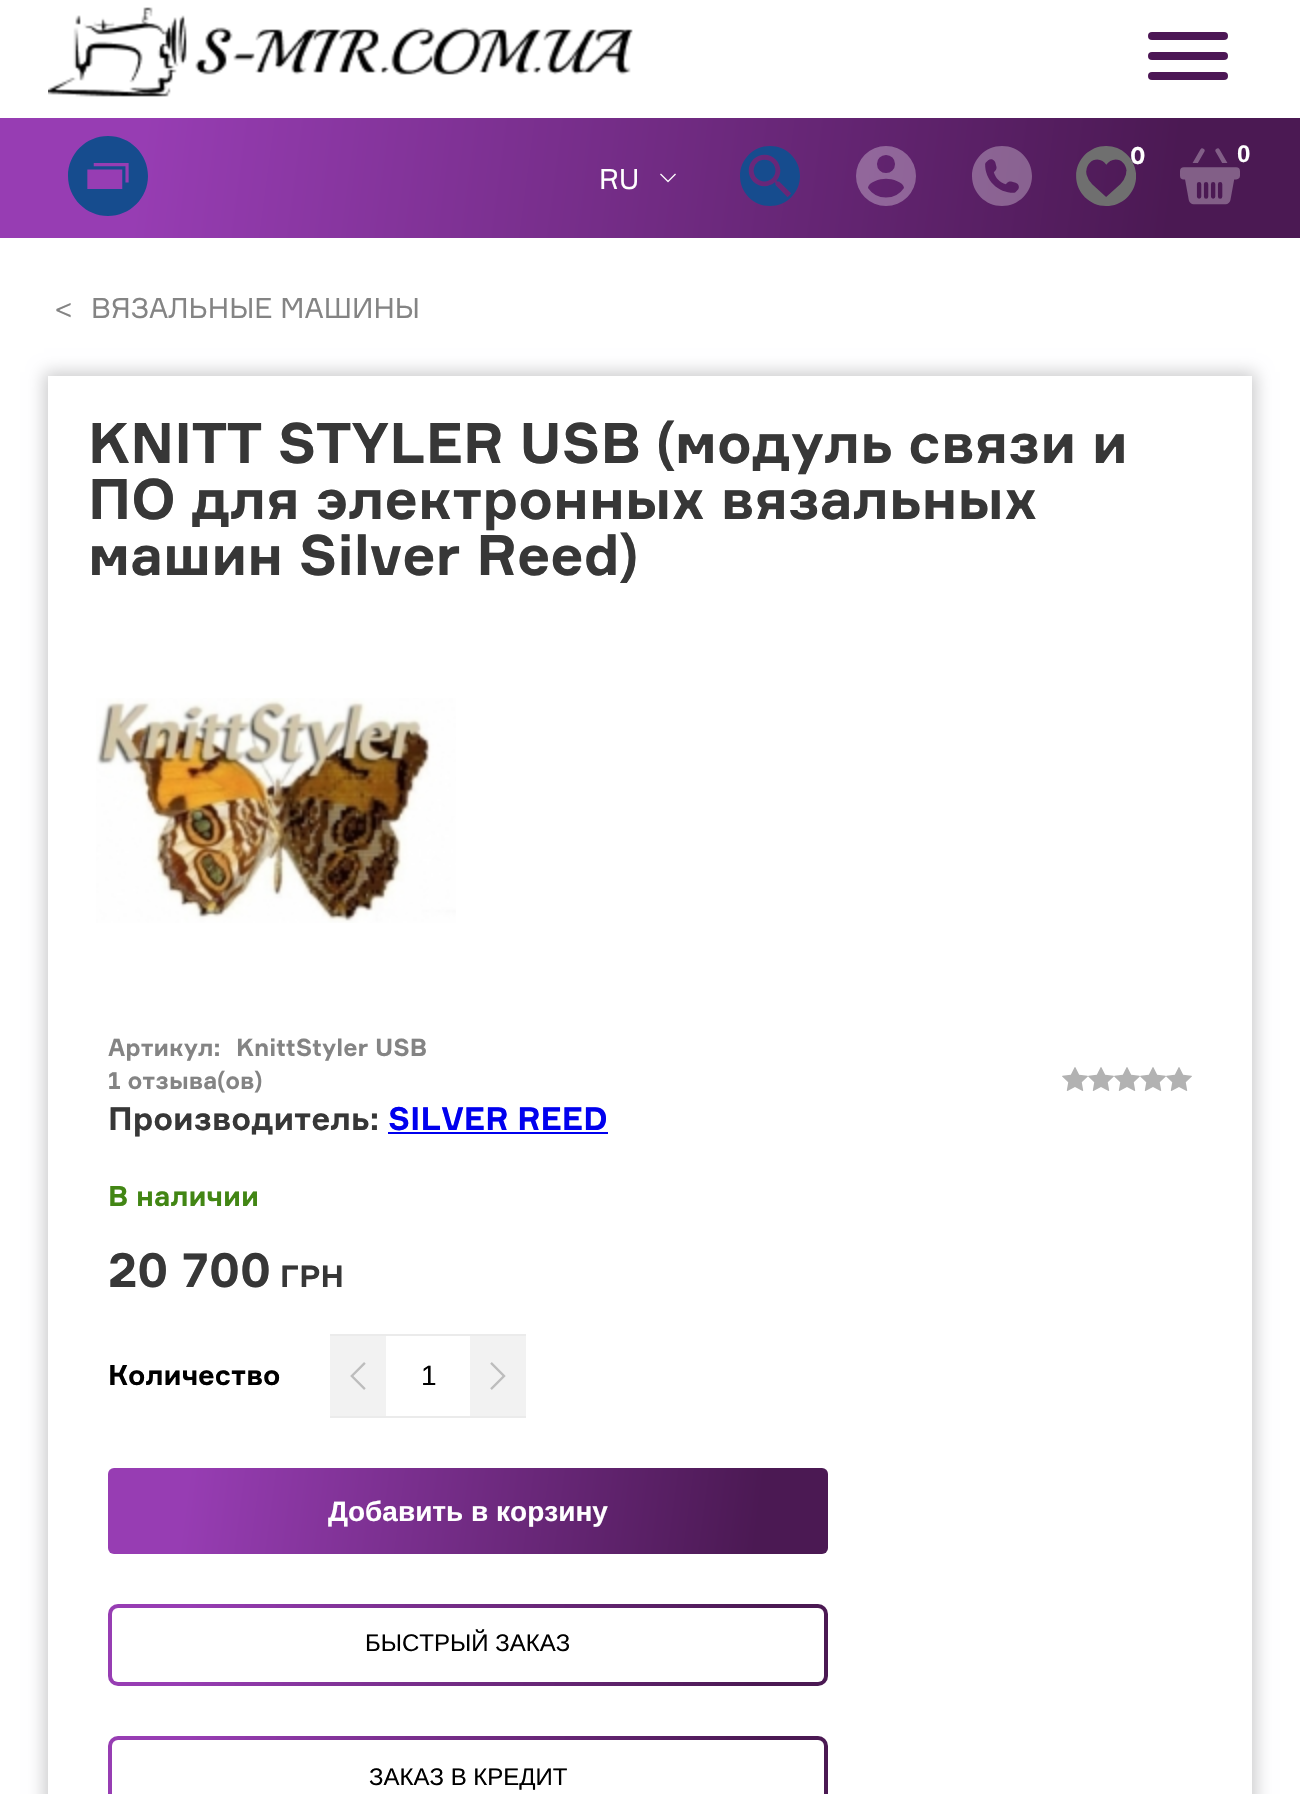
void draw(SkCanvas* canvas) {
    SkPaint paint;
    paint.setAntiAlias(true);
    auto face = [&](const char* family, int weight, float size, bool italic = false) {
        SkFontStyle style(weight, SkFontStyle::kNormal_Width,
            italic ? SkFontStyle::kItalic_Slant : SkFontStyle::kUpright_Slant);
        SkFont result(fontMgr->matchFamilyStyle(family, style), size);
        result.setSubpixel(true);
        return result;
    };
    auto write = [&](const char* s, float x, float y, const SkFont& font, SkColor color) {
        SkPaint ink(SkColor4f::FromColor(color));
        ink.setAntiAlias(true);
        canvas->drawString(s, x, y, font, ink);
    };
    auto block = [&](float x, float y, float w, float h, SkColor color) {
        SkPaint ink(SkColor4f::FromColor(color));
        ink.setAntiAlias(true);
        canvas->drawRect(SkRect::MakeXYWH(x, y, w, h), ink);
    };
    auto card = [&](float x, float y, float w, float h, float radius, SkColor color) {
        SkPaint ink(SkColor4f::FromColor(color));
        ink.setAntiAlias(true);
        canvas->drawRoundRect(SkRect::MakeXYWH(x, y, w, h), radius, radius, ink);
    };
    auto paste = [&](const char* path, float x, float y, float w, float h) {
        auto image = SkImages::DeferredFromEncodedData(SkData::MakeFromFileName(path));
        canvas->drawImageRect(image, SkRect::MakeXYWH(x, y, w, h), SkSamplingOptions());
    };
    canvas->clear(SK_ColorWHITE);
    paste("pic1.png", 48, 7, 585, 90);
    card(1148, 52, 80, 8, 4, SkColorSetRGB(76, 23, 85));
    card(1148, 32, 80, 8, 4, SkColorSetRGB(76, 23, 85));
    card(1148, 72, 80, 8, 4, SkColorSetRGB(76, 23, 85));
    {
        const SkColor colors[] = {SkColorSetRGB(151, 61, 179), SkColorSetRGB(75, 25, 83)};
        const float stops[] = {0.11f, 0.9f};
        const SkPoint ends[] = {{3.5f, 92}, {1297, 264}};
        paint.setShader(SkGradientShader::MakeLinear(ends, colors, stops, 2, SkTileMode::kClamp));
        paint.setAlpha(255);
    }
    canvas->drawRect(SkRect::MakeXYWH(0, 118, 1300, 120), paint);
    paste("pic2.png", 68, 136, 80, 80);
    paste("pic3.png", 740, 146, 60, 60);
    paste("pic4.png", 856, 146, 60, 60);
    paste("pic5.png", 972, 146, 60, 60);
    paste("pic6.png", 1076, 146, 60, 60);
    auto kFont1 = face("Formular", 700, 24);
    write("0", 1130, 164, kFont1, SK_ColorWHITE);
    paste("pic7.png", 1180, 148, 60, 57);
    auto kFont2 = face("Liberation Sans", 700, 24);
    write("0", 1237, 162, kFont2, SK_ColorWHITE);
    auto kFont3 = face("Formular", 400, 28);
    write("RU", 599, 189, kFont3, SK_ColorWHITE);
    paste("pic8.png", 660, 173, 16, 10);
    write("<", 54, 318, kFont3, SkColorSetRGB(132, 132, 132));
    write("ВЯЗАЛЬНЫЕ МАШИНЫ", 91, 318, kFont3, SkColorSetRGB(132, 132, 132));
    canvas->save();
    canvas->clipPath(SkPathBuilder(SkPathFillType::kEvenOdd).moveTo(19, 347).lineTo(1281, 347).lineTo(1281, 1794).lineTo(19, 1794).close().moveTo(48, 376).lineTo(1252, 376).lineTo(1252, 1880).lineTo(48, 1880).close().detach(), true);
    paint.setShader(nullptr);
    paint.setColor(SkColorSetARGB(51, 0, 1, 5));
    paint.setMaskFilter(SkMaskFilter::MakeBlur(kNormal_SkBlurStyle, 8));
    canvas->drawRect(SkRect::MakeXYWH(44, 372, 1212, 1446), paint);
    paint.setMaskFilter(nullptr);
    canvas->restore();
    auto kFont4 = face("Formular", 700, 56);
    write("KNITT STYLER USB (модуль связи и", 88, 463, kFont4, SkColorSetRGB(55, 55, 55));
    write("ПО для электронных вязальных", 88, 519, kFont4, SkColorSetRGB(55, 55, 55));
    write("машин Silver Reed)", 88, 575, kFont4, SkColorSetRGB(55, 55, 55));
    paste("pic9.png", 96, 698, 360, 225);
    write("Артикул:", 108, 1056, kFont1, SkColorSetRGB(132, 132, 132));
    write("KnittStyler USB", 236, 1056, kFont1, SkColorSetRGB(132, 132, 132));
    write("1 отзыва(ов)", 108, 1089, kFont1, SkColorSetRGB(132, 132, 132));
    paste("pic10.png", 1062, 1067, 26, 24);
    paste("pic10.png", 1088, 1067, 26, 24);
    paste("pic10.png", 1114, 1067, 26, 24);
    paste("pic10.png", 1140, 1067, 26, 24);
    paste("pic10.png", 1166, 1067, 26, 24);
    auto kFont5 = face("Formular", 700, 32);
    write("Производитель:", 108, 1130, kFont5, SkColorSetRGB(55, 55, 55));
    write("SILVER REED", 388, 1130, kFont5, SkColorSetRGB(0, 0, 238));
    block(388, 1132, 220, 2, SkColorSetRGB(0, 0, 238));
    auto kFont6 = face("Formular", 700, 28);
    write("В наличии", 108, 1206, kFont6, SkColorSetRGB(66, 134, 20));
    auto kFont7 = face("Formular", 700, 48);
    write("20 700", 108, 1287, kFont7, SkColorSetRGB(55, 55, 55));
    auto kFont8 = face("Formular", 700, 30);
    write("ГРН", 280, 1287, kFont8, SkColorSetRGB(55, 55, 55));
    write("Количество", 108, 1385, kFont6, SK_ColorBLACK);
    block(330, 1334, 196, 2, SkColorSetRGB(235, 235, 235));
    block(330, 1416, 196, 2, SkColorSetRGB(235, 235, 235));
    block(330, 1336, 56, 80, SkColorSetRGB(242, 242, 242));
    paste("pic11.png", 350, 1362, 16, 28);
    auto kFont9 = face("Liberation Sans", 400, 28);
    write("1", 421, 1385, kFont9, SK_ColorBLACK);
    block(470, 1336, 56, 80, SkColorSetRGB(242, 242, 242));
    paste("pic12.png", 490, 1362, 16, 28);
    {
        const SkColor colors[] = {SkColorSetRGB(151, 61, 179), SkColorSetRGB(75, 25, 83)};
        const float stops[] = {0.11f, 0.9f};
        const SkPoint ends[] = {{109, 1463}, {827, 1559}};
        paint.setShader(SkGradientShader::MakeLinear(ends, colors, stops, 2, SkTileMode::kClamp));
        paint.setAlpha(255);
    }
    canvas->drawRoundRect(SkRect::MakeXYWH(108, 1468, 720, 86), 6, 6, paint);
    auto kFont10 = face("Liberation Sans", 700, 28);
    write("Добавить в корзину", 328, 1521, kFont10, SK_ColorWHITE);
    {
        const SkColor colors[] = {SkColorSetRGB(151, 61, 179), SkColorSetRGB(75, 25, 83)};
        const float stops[] = {0.11f, 0.9f};
        const SkPoint ends[] = {{109, 1597}, {827, 1693}};
        paint.setShader(SkGradientShader::MakeLinear(ends, colors, stops, 2, SkTileMode::kClamp));
        paint.setAlpha(255);
    }
    canvas->drawRoundRect(SkRect::MakeXYWH(108, 1604, 720, 82), 10, 10, paint);
    card(112, 1608, 712, 74, 6, SK_ColorWHITE);
    auto kFont11 = face("Liberation Sans", 400, 24);
    write("БЫСТРЫЙ ЗАКАЗ", 365, 1651, kFont11, SK_ColorBLACK);
    {
        const SkColor colors[] = {SkColorSetRGB(151, 61, 179), SkColorSetRGB(75, 25, 83)};
        const float stops[] = {0.11f, 0.9f};
        const SkPoint ends[] = {{109, 1730}, {827, 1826}};
        paint.setShader(SkGradientShader::MakeLinear(ends, colors, stops, 2, SkTileMode::kClamp));
        paint.setAlpha(255);
    }
    canvas->drawRoundRect(SkRect::MakeXYWH(108, 1736, 720, 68), 10, 10, paint);
    card(112, 1740, 712, 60, 6, SK_ColorWHITE);
    write("ЗАКАЗ В КРЕДИТ", 369, 1785, kFont11, SK_ColorBLACK);
}
